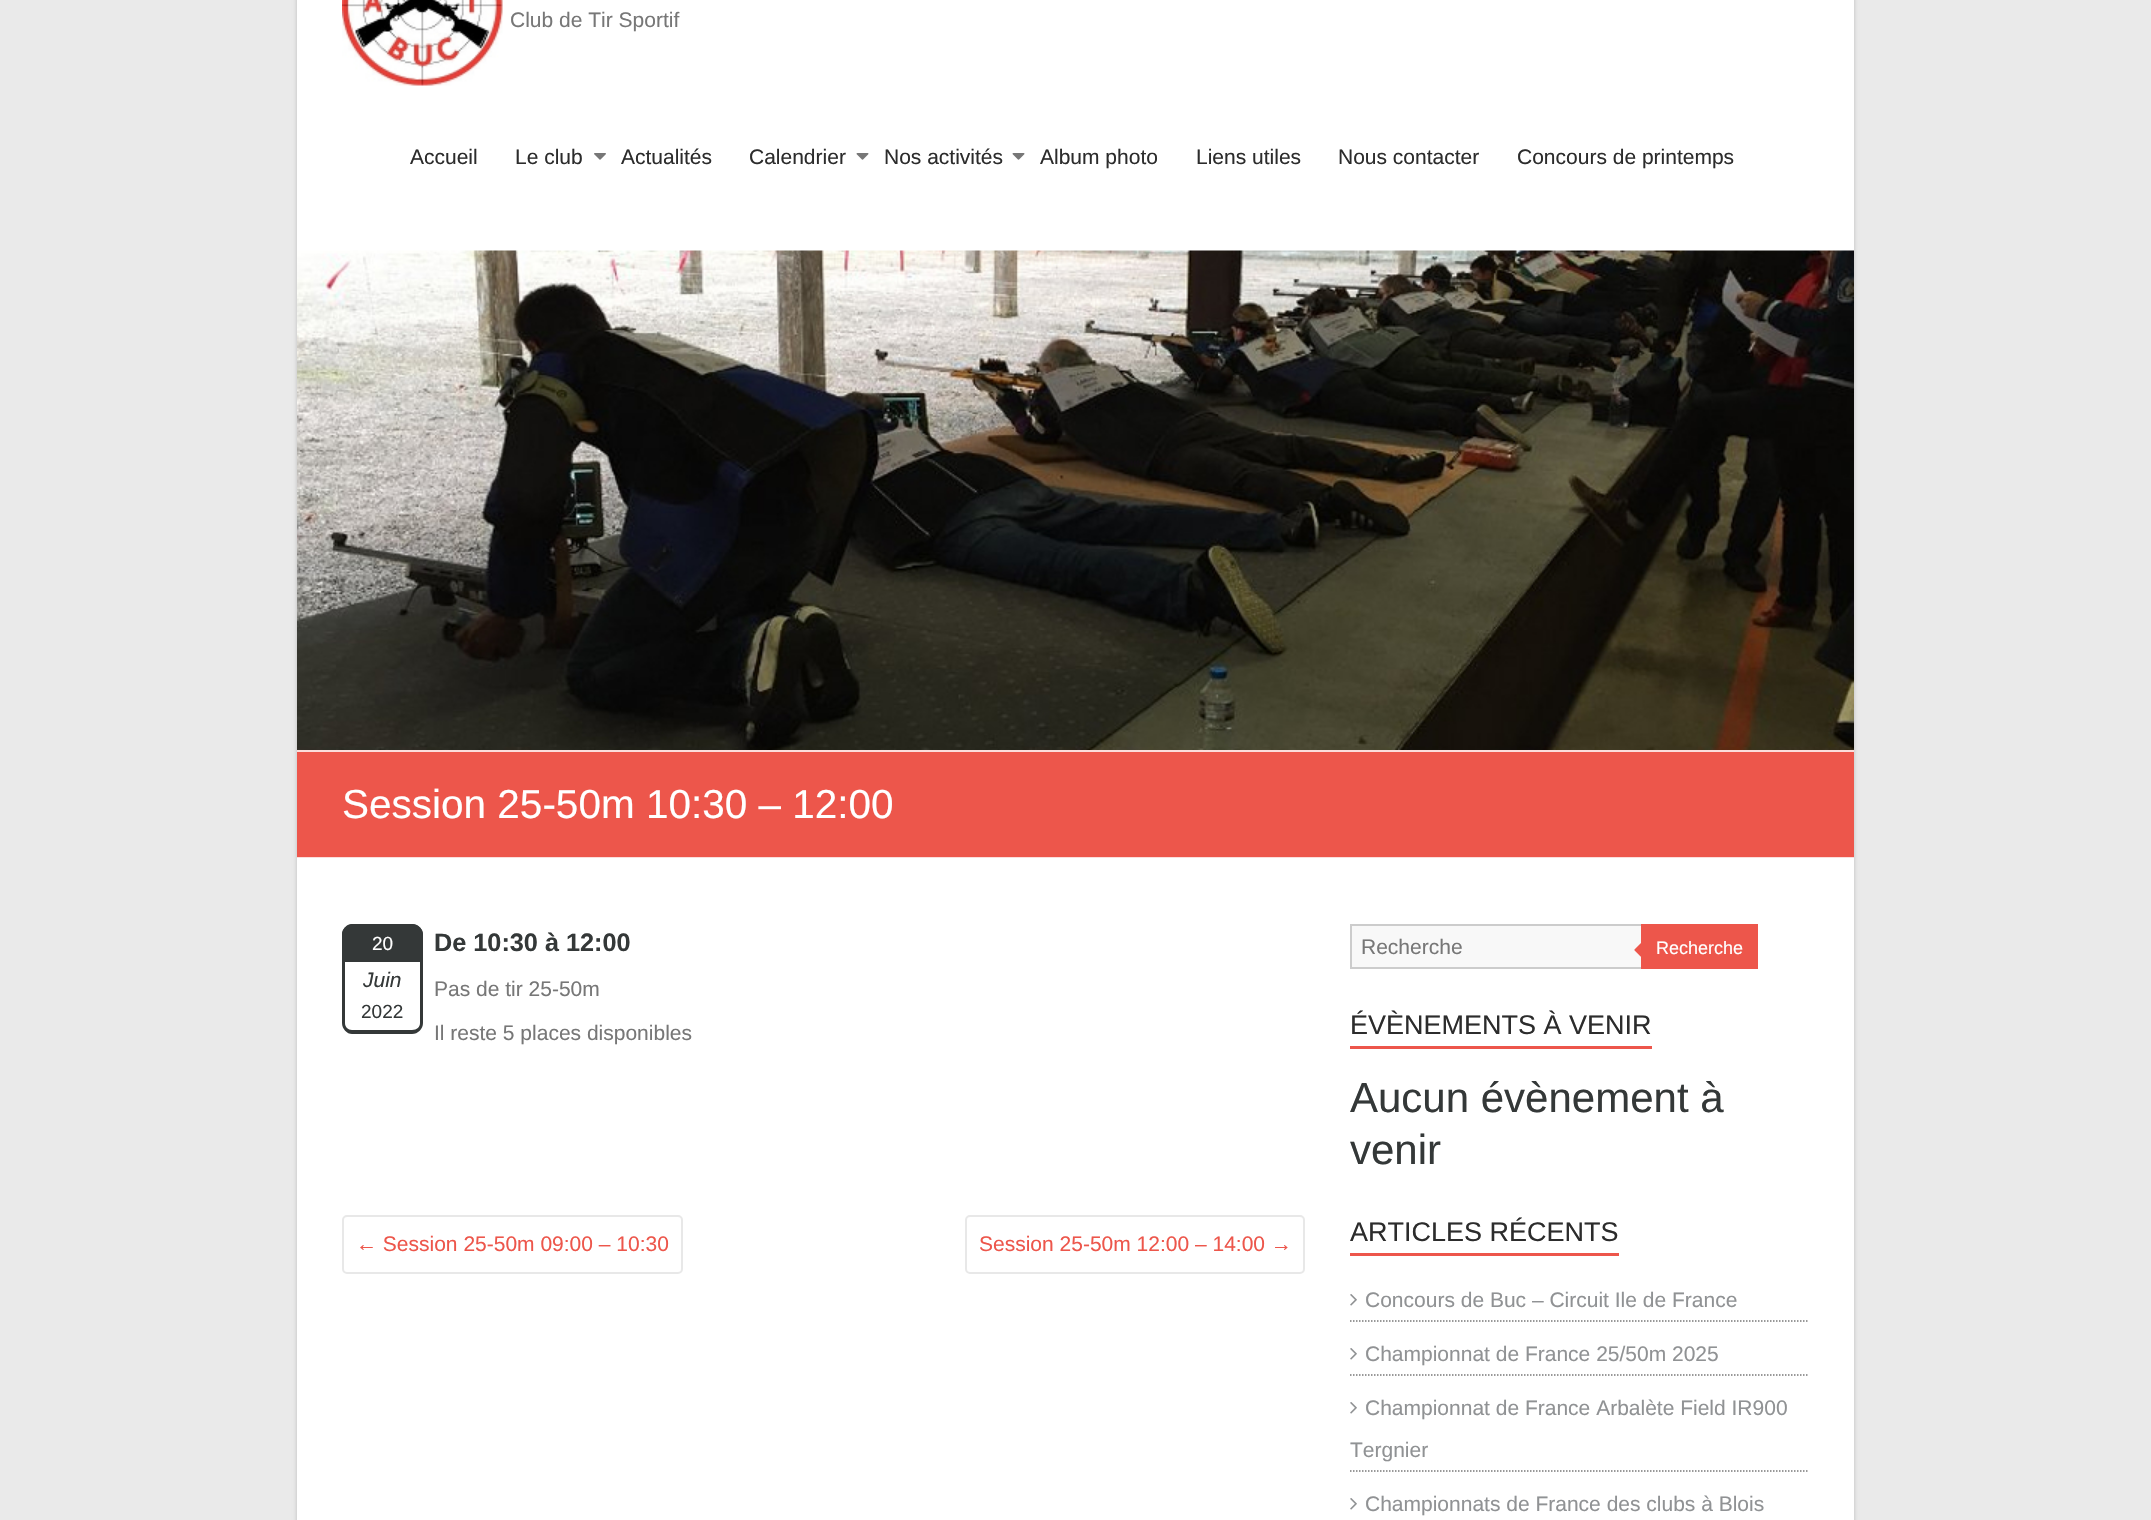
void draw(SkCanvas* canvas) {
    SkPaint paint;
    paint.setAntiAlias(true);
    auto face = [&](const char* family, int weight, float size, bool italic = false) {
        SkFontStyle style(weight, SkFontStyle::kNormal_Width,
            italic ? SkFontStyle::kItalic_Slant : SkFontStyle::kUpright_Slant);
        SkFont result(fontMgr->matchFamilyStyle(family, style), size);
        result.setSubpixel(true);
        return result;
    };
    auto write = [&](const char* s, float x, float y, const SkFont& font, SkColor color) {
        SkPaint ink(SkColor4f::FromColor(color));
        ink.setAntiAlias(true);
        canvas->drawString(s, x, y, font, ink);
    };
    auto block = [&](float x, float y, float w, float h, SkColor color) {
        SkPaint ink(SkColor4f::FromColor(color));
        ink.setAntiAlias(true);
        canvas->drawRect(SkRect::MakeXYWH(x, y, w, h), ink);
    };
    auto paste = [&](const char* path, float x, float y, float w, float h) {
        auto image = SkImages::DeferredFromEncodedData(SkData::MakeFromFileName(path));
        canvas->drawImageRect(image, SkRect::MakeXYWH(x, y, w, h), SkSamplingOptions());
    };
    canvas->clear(SkColorSetRGB(234, 234, 234));
    paint.setColor(SkColorSetARGB(51, 0, 0, 0));
    paint.setMaskFilter(SkMaskFilter::MakeBlur(kNormal_SkBlurStyle, 2));
    canvas->drawRect(SkRect::MakeXYWH(297, -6, 1557, 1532), paint);
    paint.setMaskFilter(nullptr);
    block(297, 0, 1557, 1520, SK_ColorWHITE);
    paste("pic1.png", 342, 0, 161, 86);
    auto kFont1 = face("Liberation Sans", 400, 21);
    write("Club de Tir Sportif", 510, 27, kFont1, SkColorSetRGB(119, 119, 119));
    write("Accueil", 410, 164, kFont1, SkColorSetRGB(44, 44, 44));
    write("Le club", 515, 164, kFont1, SkColorSetRGB(44, 44, 44));
    paste("pic2.png", 594, 153, 12, 7);
    write("Actualités", 621, 164, kFont1, SkColorSetRGB(44, 44, 44));
    write("Calendrier", 749, 164, kFont1, SkColorSetRGB(44, 44, 44));
    paste("pic3.png", 856, 153, 13, 7);
    write("Nos activités", 884, 164, kFont1, SkColorSetRGB(44, 44, 44));
    paste("pic3.png", 1012, 153, 13, 7);
    write("Album photo", 1040, 164, kFont1, SkColorSetRGB(44, 44, 44));
    write("Liens utiles", 1196, 164, kFont1, SkColorSetRGB(44, 44, 44));
    write("Nous contacter", 1338, 164, kFont1, SkColorSetRGB(44, 44, 44));
    write("Concours de printemps", 1517, 164, kFont1, SkColorSetRGB(44, 44, 44));
    paste("pic4.png", 297, 250, 1557, 500);
    block(297, 752, 1557, 105, SkColorSetRGB(237, 86, 75));
    block(297, 857, 1557, 1, SkColorSetRGB(251, 221, 219));
    block(297, 750, 1557, 2, SkColorSetRGB(251, 221, 219));
    auto kFont2 = face("Liberation Sans", 400, 40.5f);
    write("Session 25-50m 10:30 – 12:00", 342, 818, kFont2, SK_ColorWHITE);
    paint.setColor(SkColorSetRGB(52, 56, 56));
    canvas->drawPath(SkPathBuilder().moveTo(353, 924).lineTo(412, 924).cubicTo(418, 924, 423, 929, 423, 935).lineTo(423, 962).lineTo(342, 962).lineTo(342, 935).cubicTo(342, 929, 347, 924, 353, 924).close().detach(), paint);
    canvas->drawPath(SkPathBuilder(SkPathFillType::kEvenOdd).moveTo(352, 924).lineTo(412, 924).cubicTo(418, 924, 423, 929, 423, 934).lineTo(423, 962).lineTo(342, 962).lineTo(342, 934).cubicTo(342, 929, 347, 924, 352, 924).close().moveTo(352, 927).lineTo(412, 927).cubicTo(417, 927, 420, 930, 420, 934).lineTo(420, 962).lineTo(345, 962).lineTo(345, 934).cubicTo(345, 930, 348, 927, 352, 927).close().detach(), paint);
    auto kFont3 = face("Liberation Sans", 400, 19);
    write("20", 372, 950, kFont3, SK_ColorWHITE);
    canvas->drawPath(SkPathBuilder(SkPathFillType::kEvenOdd).moveTo(342, 962).lineTo(423, 962).lineTo(423, 1023).cubicTo(423, 1029, 418, 1034, 412, 1034).lineTo(352, 1034).cubicTo(347, 1034, 342, 1029, 342, 1023).close().moveTo(345, 962).lineTo(420, 962).lineTo(420, 1023).cubicTo(420, 1027, 417, 1030, 412, 1030).lineTo(352, 1030).cubicTo(348, 1030, 345, 1027, 345, 1023).close().detach(), paint);
    auto kFont4 = face("Liberation Sans", 400, 21, true);
    write("Juin", 363, 987, kFont4, SkColorSetRGB(52, 56, 56));
    write("2022", 361, 1018, kFont3, SkColorSetRGB(52, 56, 56));
    auto kFont5 = face("Liberation Sans", 700, 25.25f);
    write("De 10:30 à 12:00", 434, 951, kFont5, SkColorSetRGB(52, 56, 56));
    write("Pas de tir 25-50m", 434, 996, kFont1, SkColorSetRGB(119, 119, 119));
    write("Il reste 5 places disponibles", 434, 1040, kFont1, SkColorSetRGB(119, 119, 119));
    paint.setStyle(SkPaint::kStroke_Style);
    paint.setStrokeWidth(2);
    paint.setColor(SkColorSetRGB(232, 232, 232));
    canvas->drawRoundRect(SkRect::MakeXYWH(343, 1216, 339, 57), 4, 4, paint);
    write("← Session 25-50m 09:00 – 10:30", 356, 1251, kFont1, SkColorSetRGB(237, 86, 75));
    canvas->drawRoundRect(SkRect::MakeXYWH(966, 1216, 338, 57), 4, 4, paint);
    write("Session 25-50m 12:00 – 14:00 →", 979, 1251, kFont1, SkColorSetRGB(237, 86, 75));
    paint.setStyle(SkPaint::kFill_Style);
    paint.setColor(SkColorSetRGB(248, 248, 248));
    canvas->drawRect(SkRect::MakeXYWH(1351, 925, 291, 43), paint);
    paint.setStyle(SkPaint::kStroke_Style);
    paint.setColor(SkColorSetRGB(204, 204, 204));
    canvas->drawRect(SkRect::MakeXYWH(1351, 925, 291, 43), paint);
    write("Recherche", 1361, 954, kFont1, SkColorSetRGB(119, 119, 119));
    block(1641, 924, 117, 45, SkColorSetRGB(237, 86, 75));
    paste("pic5.png", 1634, 943, 7, 14);
    auto kFont6 = face("Liberation Sans", 400, 18);
    write("Recherche", 1656, 954, kFont6, SK_ColorWHITE);
    auto kFont7 = face("Liberation Sans", 400, 27);
    write("ÉVÈNEMENTS À VENIR", 1350, 1034, kFont7, SkColorSetRGB(44, 44, 44));
    block(1350, 1046, 302, 3, SkColorSetRGB(237, 86, 75));
    auto kFont8 = face("Liberation Sans", 400, 42);
    write("Aucun évènement à", 1350, 1112, kFont8, SkColorSetRGB(52, 56, 56));
    write("venir", 1350, 1164, kFont8, SkColorSetRGB(52, 56, 56));
    write("ARTICLES RÉCENTS", 1350, 1241, kFont7, SkColorSetRGB(44, 44, 44));
    block(1350, 1253, 269, 3, SkColorSetRGB(237, 86, 75));
    paint.setStrokeWidth(1.5f);
    paint.setColor(SkColorSetRGB(119, 119, 119));
    paint.setPathEffect(SkDashPathEffect::Make({{1.5f, 1.5f}}, 0));
    canvas->drawPath(SkPathBuilder().moveTo(1350, 1321).lineTo(1809, 1321).detach(), paint);
    paint.setPathEffect(nullptr);
    paste("pic6.png", 1350, 1294, 7, 12);
    write("Concours de Buc – Circuit Ile de France", 1365, 1307, kFont1, SkColorSetRGB(144, 146, 148));
    paint.setPathEffect(SkDashPathEffect::Make({{1.5f, 1.5f}}, 0));
    canvas->drawPath(SkPathBuilder().moveTo(1350, 1375).lineTo(1809, 1375).detach(), paint);
    paint.setPathEffect(nullptr);
    paste("pic6.png", 1350, 1348, 7, 12);
    write("Championnat de France 25/50m 2025", 1365, 1361, kFont1, SkColorSetRGB(144, 146, 148));
    paint.setPathEffect(SkDashPathEffect::Make({{1.5f, 1.5f}}, 0));
    canvas->drawPath(SkPathBuilder().moveTo(1350, 1471).lineTo(1809, 1471).detach(), paint);
    paint.setPathEffect(nullptr);
    paste("pic6.png", 1350, 1402, 7, 12);
    write("Championnat de France Arbalète Field IR900", 1365, 1415, kFont1, SkColorSetRGB(144, 146, 148));
    write("Tergnier", 1350, 1457, kFont1, SkColorSetRGB(144, 146, 148));
    paste("pic6.png", 1350, 1498, 7, 12);
    write("Championnats de France des clubs à Blois", 1365, 1511, kFont1, SkColorSetRGB(144, 146, 148));
}
